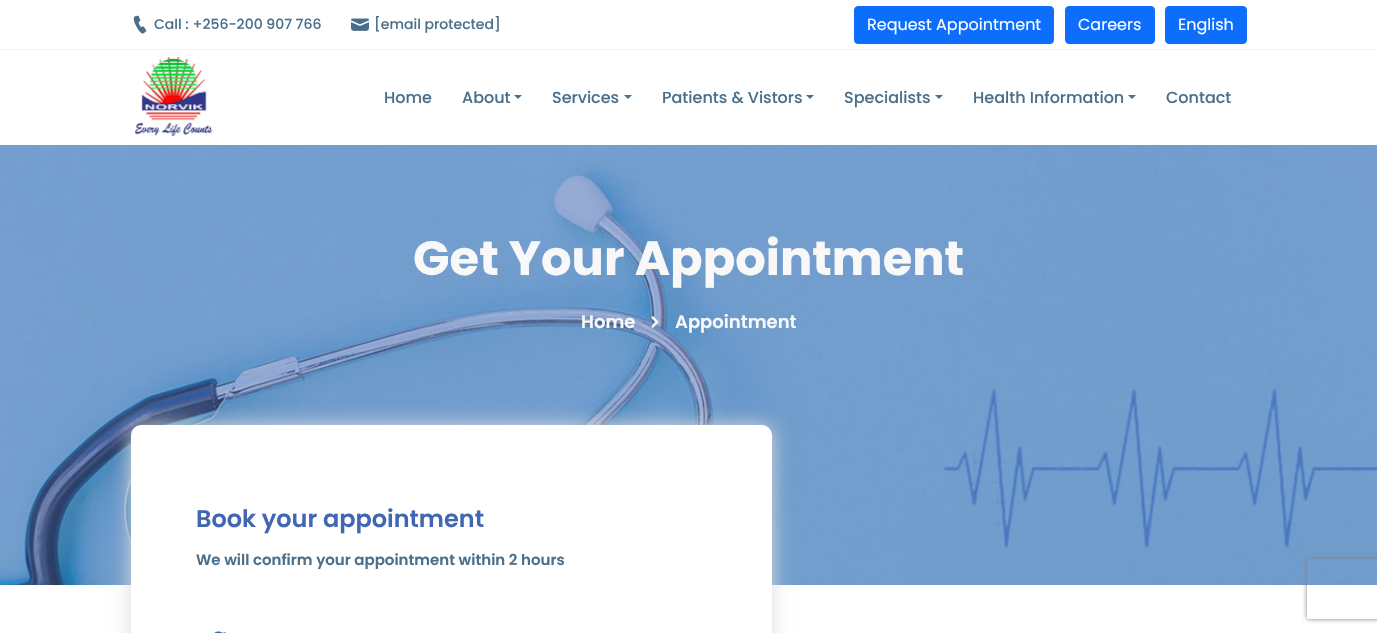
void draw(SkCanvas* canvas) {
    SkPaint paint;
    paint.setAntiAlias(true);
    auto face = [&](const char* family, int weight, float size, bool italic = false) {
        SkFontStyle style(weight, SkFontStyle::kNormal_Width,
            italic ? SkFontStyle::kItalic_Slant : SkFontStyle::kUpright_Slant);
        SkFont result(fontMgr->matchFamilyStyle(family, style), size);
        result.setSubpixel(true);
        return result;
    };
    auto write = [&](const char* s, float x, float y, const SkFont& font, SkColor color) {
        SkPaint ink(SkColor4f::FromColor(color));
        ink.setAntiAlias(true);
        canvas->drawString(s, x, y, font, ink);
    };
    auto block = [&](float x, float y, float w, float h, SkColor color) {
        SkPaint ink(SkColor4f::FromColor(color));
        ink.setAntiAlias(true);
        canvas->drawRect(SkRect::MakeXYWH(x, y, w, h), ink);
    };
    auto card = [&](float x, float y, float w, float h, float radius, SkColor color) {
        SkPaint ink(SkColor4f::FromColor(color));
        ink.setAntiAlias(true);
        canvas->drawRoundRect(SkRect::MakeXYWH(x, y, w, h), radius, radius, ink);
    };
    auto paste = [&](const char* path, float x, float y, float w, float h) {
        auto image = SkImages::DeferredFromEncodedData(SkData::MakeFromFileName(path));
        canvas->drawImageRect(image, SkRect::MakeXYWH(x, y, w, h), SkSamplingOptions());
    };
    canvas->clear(SK_ColorWHITE);
    block(0, 49, 1377, 1, SkColorSetRGB(242, 242, 242));
    paste("pic1.png", 133, 15, 14, 19);
    auto kFont1 = face("Poppins", 500, 14);
    write("Call : +256-200 907 766", 154, 29, kFont1, SkColorSetRGB(74, 111, 138));
    paste("pic2.png", 351, 18, 18, 13);
    write("[email protected]", 374, 29, kFont1, SkColorSetRGB(74, 111, 138));
    paint.setColor(SkColorSetRGB(13, 110, 253));
    canvas->drawRoundRect(SkRect::MakeXYWH(854.5f, 6.5f, 199, 37), 3.5f, 3.5f, paint);
    paint.setStyle(SkPaint::kStroke_Style);
    paint.setStrokeWidth(1);
    canvas->drawRoundRect(SkRect::MakeXYWH(854.5f, 6.5f, 199, 37), 3.5f, 3.5f, paint);
    auto kFont2 = face("Poppins", 400, 16);
    write("Request Appointment", 867, 30, kFont2, SK_ColorWHITE);
    paint.setStyle(SkPaint::kFill_Style);
    canvas->drawRoundRect(SkRect::MakeXYWH(1065.5f, 6.5f, 89, 37), 3.5f, 3.5f, paint);
    paint.setStyle(SkPaint::kStroke_Style);
    canvas->drawRoundRect(SkRect::MakeXYWH(1065.5f, 6.5f, 89, 37), 3.5f, 3.5f, paint);
    write("Careers", 1078, 30, kFont2, SK_ColorWHITE);
    paint.setStyle(SkPaint::kFill_Style);
    canvas->drawRoundRect(SkRect::MakeXYWH(1165.5f, 6.5f, 81, 37), 3.5f, 3.5f, paint);
    paint.setStyle(SkPaint::kStroke_Style);
    canvas->drawRoundRect(SkRect::MakeXYWH(1165.5f, 6.5f, 81, 37), 3.5f, 3.5f, paint);
    write("English", 1178, 30, kFont2, SK_ColorWHITE);
    paste("pic3.png", 135, 56, 78, 81);
    auto kFont3 = face("Poppins", 500, 16);
    write("Home", 384, 103, kFont3, SkColorSetRGB(74, 111, 138));
    write("About", 462, 103, kFont3, SkColorSetRGB(74, 111, 138));
    paint.setStyle(SkPaint::kFill_Style);
    paint.setColor(SkColorSetRGB(74, 111, 138));
    canvas->drawPath(SkPathBuilder().moveTo(514, 95).lineTo(522, 95).lineTo(518, 99).close().detach(), paint);
    write("Services", 552, 103, kFont3, SkColorSetRGB(74, 111, 138));
    canvas->drawPath(SkPathBuilder().moveTo(624, 95).lineTo(632, 95).lineTo(628, 99).close().detach(), paint);
    write("Patients & Vistors", 662, 103, kFont3, SkColorSetRGB(74, 111, 138));
    canvas->drawPath(SkPathBuilder().moveTo(806, 95).lineTo(814, 95).lineTo(810, 99).close().detach(), paint);
    write("Specialists", 844, 103, kFont3, SkColorSetRGB(74, 111, 138));
    canvas->drawPath(SkPathBuilder().moveTo(935, 95).lineTo(943, 95).lineTo(939, 99).close().detach(), paint);
    write("Health Information", 973, 103, kFont3, SkColorSetRGB(74, 111, 138));
    canvas->drawPath(SkPathBuilder().moveTo(1128, 95).lineTo(1136, 95).lineTo(1132, 99).close().detach(), paint);
    write("Contact", 1166, 103, kFont3, SkColorSetRGB(74, 111, 138));
    paste("pic4.png", 0, 145, 1377, 440);
    auto kFont4 = face("Poppins", 700, 48);
    write("Get Your Appointment", 413, 275, kFont4, SkColorSetRGB(248, 248, 248));
    auto kFont5 = face("Poppins", 600, 18);
    write("Home", 581, 328, kFont5, SkColorSetRGB(248, 248, 248));
    paste("pic5.png", 651, 316, 8, 12);
    write("Appointment", 675, 328, kFont5, SkColorSetRGB(248, 248, 248));
    paint.setColor(SkColorSetRGB(221, 221, 221));
    paint.setMaskFilter(SkMaskFilter::MakeBlur(kNormal_SkBlurStyle, 10));
    canvas->drawRoundRect(SkRect::MakeXYWH(131, 425, 641, 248), 10, 10, paint);
    paint.setMaskFilter(nullptr);
    card(131, 425, 641, 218, 10, SK_ColorWHITE);
    auto kFont6 = face("Poppins", 600, 24);
    write("Book your appointment", 196, 527, kFont6, SkColorSetRGB(66, 103, 178));
    canvas->save();
    canvas->clipPath(SkPathBuilder(SkPathFillType::kEvenOdd).moveTo(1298, 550).lineTo(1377, 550).lineTo(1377, 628).lineTo(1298, 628).close().moveTo(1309, 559).lineTo(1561, 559).cubicTo(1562, 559, 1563, 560, 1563, 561).lineTo(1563, 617).cubicTo(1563, 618, 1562, 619, 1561, 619).lineTo(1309, 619).cubicTo(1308, 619, 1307, 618, 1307, 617).lineTo(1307, 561).cubicTo(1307, 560, 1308, 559, 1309, 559).close().detach(), true);
    paint.setColor(SkColorSetRGB(128, 128, 128));
    paint.setMaskFilter(SkMaskFilter::MakeBlur(kNormal_SkBlurStyle, 2.5f));
    canvas->drawRoundRect(SkRect::MakeXYWH(1307, 559, 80, 60), 2, 2, paint);
    paint.setMaskFilter(nullptr);
    canvas->restore();
    paste("pic6.png", 214, 631, 13, 2);
    auto kFont7 = face("Poppins", 600, 15);
    write("We will confirm your appointment within 2 hours", 196, 565, kFont7, SkColorSetRGB(74, 111, 138));
}
